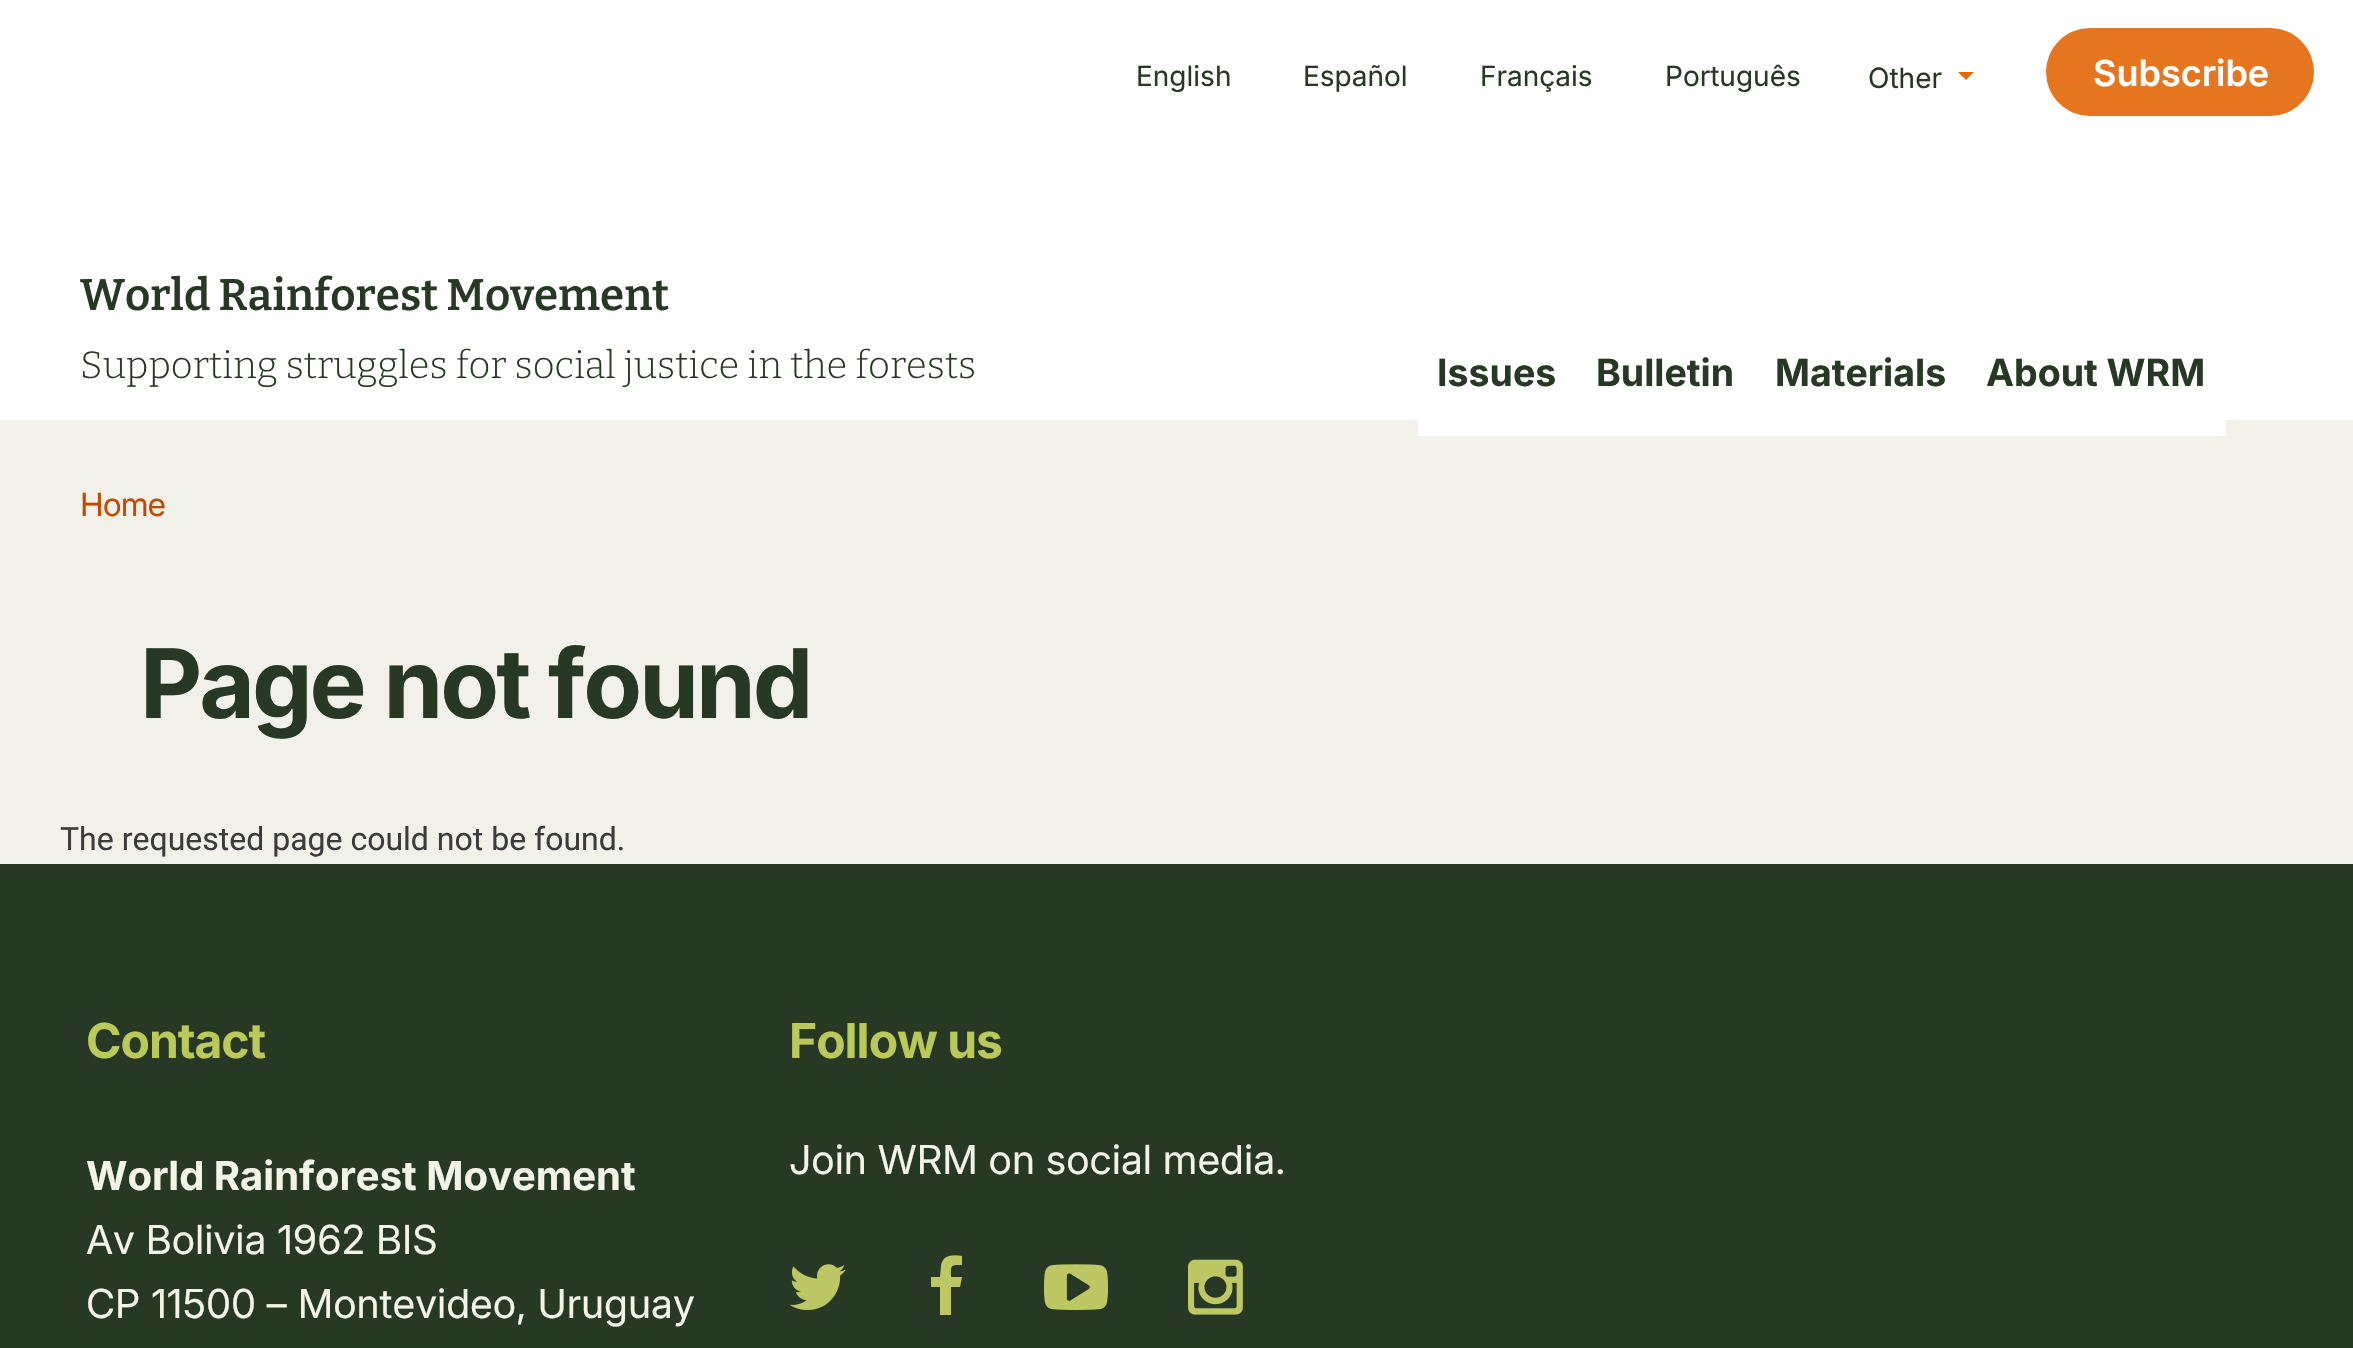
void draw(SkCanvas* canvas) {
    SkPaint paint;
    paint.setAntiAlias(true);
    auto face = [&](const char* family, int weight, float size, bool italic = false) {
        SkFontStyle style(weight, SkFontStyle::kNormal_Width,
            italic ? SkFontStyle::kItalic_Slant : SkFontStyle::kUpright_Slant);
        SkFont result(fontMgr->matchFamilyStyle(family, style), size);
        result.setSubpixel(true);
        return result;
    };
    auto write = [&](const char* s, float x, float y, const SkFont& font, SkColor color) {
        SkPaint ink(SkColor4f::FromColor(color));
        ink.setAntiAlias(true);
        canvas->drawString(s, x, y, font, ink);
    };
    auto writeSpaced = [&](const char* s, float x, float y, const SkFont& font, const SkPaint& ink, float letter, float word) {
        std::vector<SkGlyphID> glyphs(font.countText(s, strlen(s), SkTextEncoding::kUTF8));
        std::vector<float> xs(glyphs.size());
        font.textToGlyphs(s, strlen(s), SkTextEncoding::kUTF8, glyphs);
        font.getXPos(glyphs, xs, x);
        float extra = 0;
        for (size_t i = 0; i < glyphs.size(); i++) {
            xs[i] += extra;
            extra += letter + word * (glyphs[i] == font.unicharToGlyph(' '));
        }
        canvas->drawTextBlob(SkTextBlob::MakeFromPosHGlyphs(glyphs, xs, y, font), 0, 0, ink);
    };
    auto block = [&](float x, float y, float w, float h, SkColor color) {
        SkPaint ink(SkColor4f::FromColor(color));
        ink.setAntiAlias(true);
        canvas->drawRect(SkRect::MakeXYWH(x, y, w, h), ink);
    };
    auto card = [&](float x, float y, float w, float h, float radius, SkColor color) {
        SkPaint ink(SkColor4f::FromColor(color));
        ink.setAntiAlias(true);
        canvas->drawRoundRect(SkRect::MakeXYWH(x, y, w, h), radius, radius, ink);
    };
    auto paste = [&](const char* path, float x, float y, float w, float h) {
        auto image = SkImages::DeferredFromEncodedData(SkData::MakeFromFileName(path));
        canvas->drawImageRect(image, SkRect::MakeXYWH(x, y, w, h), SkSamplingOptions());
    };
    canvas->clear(SK_ColorWHITE);
    auto kFont1 = face("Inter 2", 400, 28);
    write("English", 1136, 86, kFont1, SkColorSetRGB(39, 57, 36));
    write("Español", 1303, 86, kFont1, SkColorSetRGB(39, 57, 36));
    write("Français", 1480, 86, kFont1, SkColorSetRGB(39, 57, 36));
    write("Português", 1665, 86, kFont1, SkColorSetRGB(39, 57, 36));
    write("Other", 1868, 88, kFont1, SkColorSetRGB(39, 57, 36));
    paint.setColor(SkColorSetRGB(229, 106, 14));
    canvas->drawPath(SkPathBuilder().moveTo(1958, 72).lineTo(1974, 72).lineTo(1966, 80).close().detach(), paint);
    card(2046, 28, 268, 88, 44, SkColorSetRGB(230, 117, 32));
    auto kFont2 = face("Inter", 600, 36);
    write("Subscribe", 2093, 86, kFont2, SK_ColorWHITE);
    auto kFont3 = face("Bitter", 600, 44);
    write("World Rainforest Movement", 80, 310, kFont3, SkColorSetRGB(39, 57, 36));
    auto kFont4 = face("Bitter", 300, 38);
    write("Supporting struggles for social justice in the forests", 80, 378, kFont4, SkColorSetRGB(39, 57, 36));
    block(0, 420, 2353, 444, SkColorSetRGB(241, 241, 233));
    block(1418, 420, 808, 16, SK_ColorWHITE);
    auto kFont5 = face("Inter", 700, 37.5f);
    write("Issues", 1437, 386, kFont5, SkColorSetRGB(39, 57, 36));
    write("Bulletin", 1596, 386, kFont5, SkColorSetRGB(39, 57, 36));
    write("Materials", 1775, 386, kFont5, SkColorSetRGB(39, 57, 36));
    write("About WRM", 1986, 386, kFont5, SkColorSetRGB(39, 57, 36));
    auto kFont6 = face("Inter", 400, 32);
    paint.setColor(SkColorSetRGB(194, 74, 0));
    writeSpaced("Home", 80, 516, kFont6, paint, -1, 0);
    auto kFont7 = face("Inter", 700, 96);
    paint.setColor(SkColorSetRGB(39, 57, 36));
    writeSpaced("Page not found", 140, 718, kFont7, paint, -3, 0);
    auto kFont8 = face("Roboto", 400, 32);
    write("The requested page could not be found.", 60, 850, kFont8, SkColorSetRGB(59, 59, 59));
    block(0, 864, 2353, 484, SkColorSetRGB(39, 57, 36));
    auto kFont9 = face("Inter", 700, 48);
    paint.setColor(SkColorSetRGB(187, 200, 90));
    writeSpaced("Contact", 86, 1058, kFont9, paint, -1, 0);
    auto kFont10 = face("Inter", 700, 40);
    write("World Rainforest Movement", 86, 1190, kFont10, SkColorSetRGB(242, 244, 230));
    auto kFont11 = face("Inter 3", 400, 40);
    write("Av Bolivia 1962 BIS", 86, 1254, kFont11, SkColorSetRGB(242, 244, 230));
    write("CP 11500 – Montevideo, Uruguay", 86, 1318, kFont11, SkColorSetRGB(242, 244, 230));
    writeSpaced("Follow us", 789, 1058, kFont9, paint, -1, 0);
    write("Join WRM on social media.", 789, 1174, kFont11, SkColorSetRGB(242, 244, 230));
    paste("pic1.png", 789, 1264, 57, 46);
    paint.setColor(SkColorSetRGB(189, 200, 101));
    canvas->drawPath(SkPathBuilder().moveTo(962, 1256).lineTo(962, 1265).cubicTo(950, 1265, 951, 1265, 951, 1277).lineTo(962, 1277).lineTo(960, 1287).lineTo(951, 1287).lineTo(951, 1315).lineTo(940, 1315).lineTo(940, 1287).lineTo(931, 1287).lineTo(931, 1277).lineTo(940, 1277).lineTo(941, 1266).cubicTo(942, 1255, 953, 1254, 962, 1256).close().detach(), paint);
    paste("pic2.png", 1044, 1264, 64, 46);
    paste("pic3.png", 1188, 1259, 55, 56);
}
